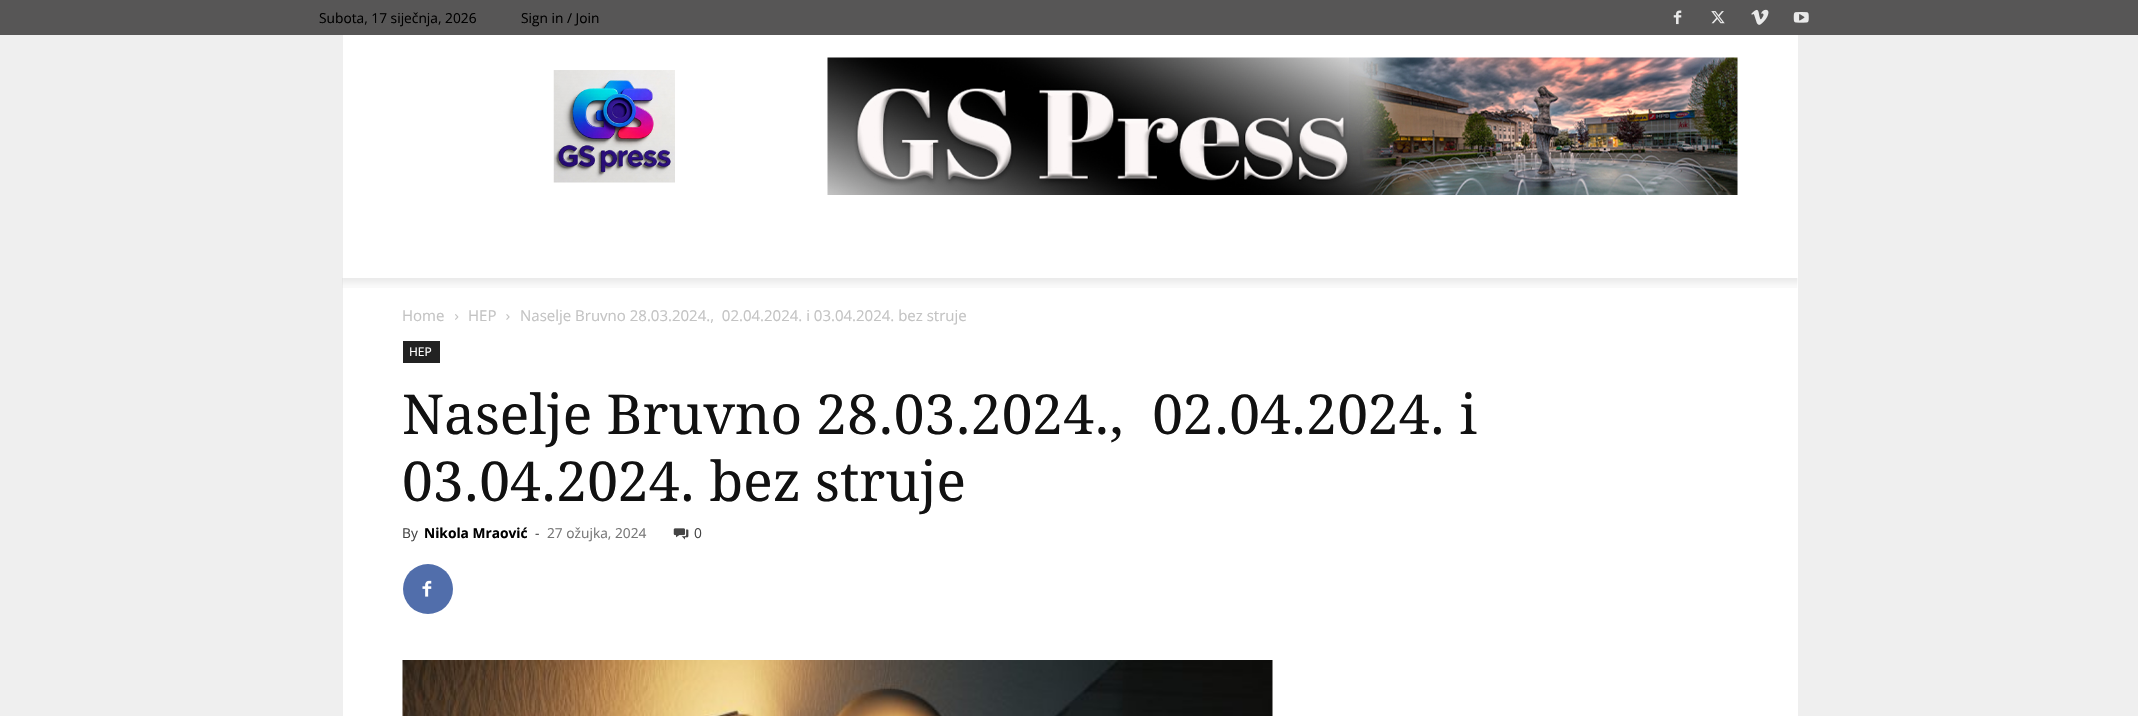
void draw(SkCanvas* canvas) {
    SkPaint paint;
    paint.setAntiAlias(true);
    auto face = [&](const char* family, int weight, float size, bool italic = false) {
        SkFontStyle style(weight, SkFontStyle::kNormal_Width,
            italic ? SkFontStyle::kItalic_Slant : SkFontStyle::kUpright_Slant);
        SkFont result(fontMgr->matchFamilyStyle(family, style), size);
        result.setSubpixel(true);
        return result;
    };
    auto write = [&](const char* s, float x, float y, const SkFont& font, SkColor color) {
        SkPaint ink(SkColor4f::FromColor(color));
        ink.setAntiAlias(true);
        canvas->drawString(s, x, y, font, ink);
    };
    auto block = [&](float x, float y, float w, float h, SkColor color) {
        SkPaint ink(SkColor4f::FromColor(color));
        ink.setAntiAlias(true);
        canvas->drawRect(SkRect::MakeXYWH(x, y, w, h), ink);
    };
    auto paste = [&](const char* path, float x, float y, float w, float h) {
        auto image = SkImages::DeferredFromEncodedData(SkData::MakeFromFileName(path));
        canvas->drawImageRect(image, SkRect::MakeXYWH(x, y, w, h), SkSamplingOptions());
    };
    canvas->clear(SkColorSetRGB(239, 239, 239));
    block(0, 0, 2138, 35, SkColorSetRGB(87, 86, 86));
    auto kFont1 = face("Open Sans", 400, 13.75f);
    write("Subota, 17 siječnja, 2026", 319, 23, kFont1, SK_ColorBLACK);
    write("Sign in / Join", 521, 23, kFont1, SK_ColorBLACK);
    paste("pic1.png", 1673, 10, 9, 15);
    paste("pic2.png", 1711, 11, 14, 13);
    paste("pic3.png", 1751, 9, 18, 16);
    paste("pic4.png", 1793, 12, 16, 11);
    block(343, 35, 1455, 243, SK_ColorWHITE);
    paste("pic5.png", 553, 70, 122, 113);
    paste("pic6.png", 827, 57, 911, 138);
    block(343, 278, 1455, 438, SK_ColorWHITE);
    paste("pic7.png", 342, 278, 1456, 10);
    auto kFont2 = face("Open Sans", 400, 15);
    write("Home", 402, 321, kFont2, SkColorSetRGB(195, 195, 195));
    paste("pic8.png", 455, 314, 4, 6);
    write("HEP", 468, 321, kFont2, SkColorSetRGB(195, 195, 195));
    paste("pic9.png", 506, 314, 4, 6);
    write("Naselje Bruvno 28.03.2024.,  02.04.2024. i 03.04.2024. bez struje", 520, 321, kFont2, SkColorSetRGB(195, 195, 195));
    block(403, 341, 37, 22, SkColorSetRGB(34, 34, 34));
    auto kFont3 = face("Open Sans", 400, 12);
    write("HEP", 409, 356, kFont3, SK_ColorWHITE);
    auto kFont4 = face("Droid Serif", 400, 55);
    write("Naselje Bruvno 28.03.2024.,  02.04.2024. i", 402, 434, kFont4, SkColorSetRGB(17, 17, 17));
    write("03.04.2024. bez struje", 402, 501, kFont4, SkColorSetRGB(17, 17, 17));
    write("By", 402, 538, kFont1, SkColorSetRGB(68, 68, 68));
    auto kFont5 = face("Open Sans", 700, 13.75f);
    write("Nikola Mraović", 424, 538, kFont5, SK_ColorBLACK);
    write("-", 535, 538, kFont1, SkColorSetRGB(68, 68, 68));
    write("27 ožujka, 2024", 547, 538, kFont1, SkColorSetRGB(118, 118, 118));
    paste("pic10.png", 673, 528, 16, 12);
    write("0", 694, 538, kFont1, SkColorSetRGB(68, 68, 68));
    paint.setColor(SkColorSetRGB(81, 110, 171));
    canvas->drawCircle(428, 589, 25, paint);
    paste("pic11.png", 422, 580, 10, 17);
    paste("pic12.png", 402, 660, 871, 56);
}
